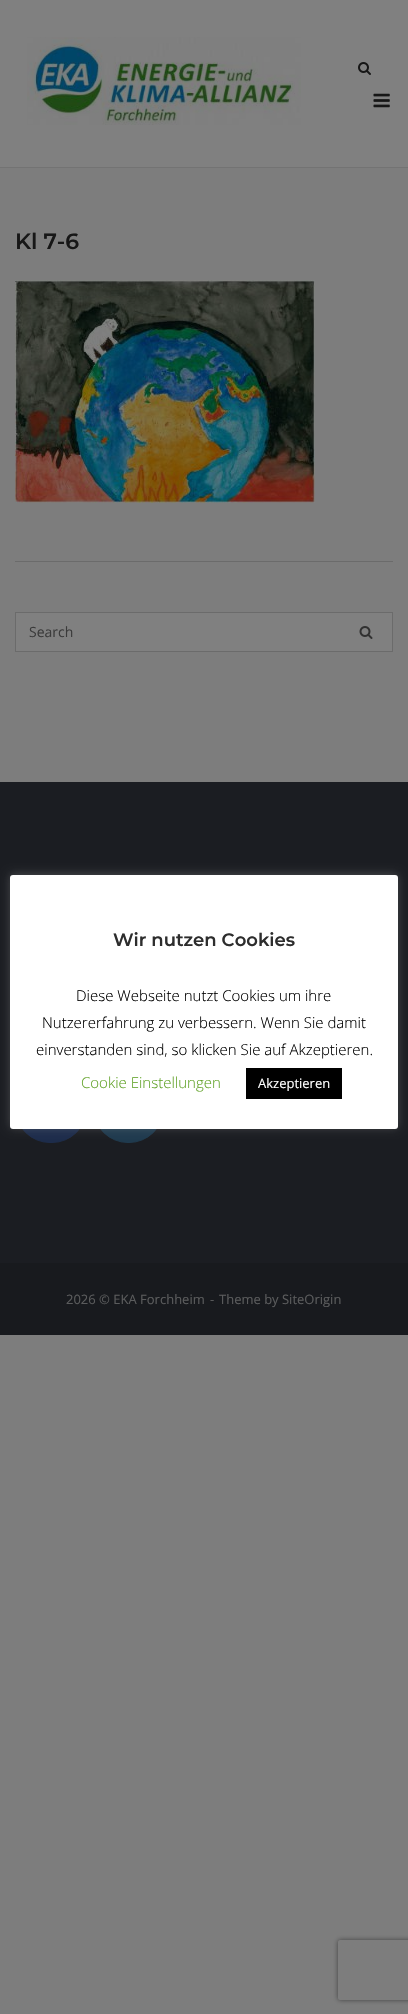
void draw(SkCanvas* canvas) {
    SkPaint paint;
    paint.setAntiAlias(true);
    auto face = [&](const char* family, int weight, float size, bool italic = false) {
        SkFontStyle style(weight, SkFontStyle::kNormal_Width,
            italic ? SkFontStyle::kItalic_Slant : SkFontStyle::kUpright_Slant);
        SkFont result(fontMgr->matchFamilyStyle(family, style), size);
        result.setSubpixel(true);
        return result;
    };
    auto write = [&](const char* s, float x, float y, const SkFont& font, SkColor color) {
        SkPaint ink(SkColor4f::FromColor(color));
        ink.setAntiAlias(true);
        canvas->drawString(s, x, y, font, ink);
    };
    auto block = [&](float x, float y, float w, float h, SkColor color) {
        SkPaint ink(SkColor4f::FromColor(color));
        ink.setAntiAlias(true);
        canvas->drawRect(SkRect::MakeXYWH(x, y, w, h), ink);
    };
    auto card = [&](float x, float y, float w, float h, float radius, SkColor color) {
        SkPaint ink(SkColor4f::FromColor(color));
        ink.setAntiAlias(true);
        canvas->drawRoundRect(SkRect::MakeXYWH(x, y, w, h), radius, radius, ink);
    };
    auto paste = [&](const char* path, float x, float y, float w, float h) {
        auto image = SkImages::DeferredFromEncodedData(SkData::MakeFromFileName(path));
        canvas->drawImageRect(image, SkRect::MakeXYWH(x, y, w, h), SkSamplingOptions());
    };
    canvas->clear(SkColorSetRGB(125, 125, 125));
    block(0, 0, 408, 167, SkColorSetRGB(128, 128, 128));
    block(0, 167, 408, 1, SkColorSetRGB(115, 115, 115));
    paste("pic1.png", 27, 37, 274, 88);
    paste("pic2.png", 358, 62, 13, 13);
    paste("pic3.png", 373, 93, 17, 15);
    auto kFont1 = face("Montserrat", 600, 22);
    write("Kl 7-6", 15, 249, kFont1, SkColorSetRGB(23, 23, 23));
    paste("pic4.png", 15, 280, 300, 223);
    block(15, 561, 378, 1, SkColorSetRGB(107, 107, 107));
    paint.setColor(SkColorSetRGB(128, 128, 128));
    canvas->drawRect(SkRect::MakeXYWH(15.5f, 612.5f, 377, 39), paint);
    paint.setStyle(SkPaint::kStroke_Style);
    paint.setStrokeWidth(1);
    paint.setColor(SkColorSetRGB(107, 107, 107));
    canvas->drawRect(SkRect::MakeXYWH(15.5f, 612.5f, 377, 39), paint);
    auto kFont2 = face("Open Sans", 400, 14);
    write("Search", 29, 637, kFont2, SkColorSetRGB(59, 59, 59));
    paste("pic5.png", 359, 626, 14, 13);
    block(0, 782, 408, 481, SkColorSetRGB(27, 29, 34));
    paint.setStyle(SkPaint::kFill_Style);
    paint.setColor(SkColorSetRGB(29, 44, 75));
    canvas->drawRoundRect(SkRect::MakeXYWH(15.5f, 1071.5f, 71, 71), 34.5f, 34.5f, paint);
    paint.setStyle(SkPaint::kStroke_Style);
    canvas->drawRoundRect(SkRect::MakeXYWH(15.5f, 1071.5f, 71, 71), 34.5f, 34.5f, paint);
    paint.setStyle(SkPaint::kFill_Style);
    paint.setColor(SkColorSetRGB(31, 58, 78));
    canvas->drawRoundRect(SkRect::MakeXYWH(93.5f, 1071.5f, 70, 71), 34.5f, 34.5f, paint);
    paint.setStyle(SkPaint::kStroke_Style);
    canvas->drawRoundRect(SkRect::MakeXYWH(93.5f, 1071.5f, 70, 71), 34.5f, 34.5f, paint);
    block(0, 1263, 408, 72, SkColorSetRGB(24, 26, 30));
    auto kFont3 = face("Open Sans", 400, 13);
    write("2026 © EKA Forchheim", 66, 1304, kFont3, SkColorSetRGB(90, 91, 92));
    write("-", 210, 1304, kFont3, SkColorSetRGB(90, 91, 92));
    write("Theme by SiteOrigin", 219, 1304, kFont3, SkColorSetRGB(90, 91, 92));
    paint.setStyle(SkPaint::kFill_Style);
    paint.setColor(SkColorSetARGB(77, 172, 171, 171));
    paint.setMaskFilter(SkMaskFilter::MakeBlur(kNormal_SkBlurStyle, 5));
    canvas->drawRoundRect(SkRect::MakeXYWH(10, 874, 388, 254), 3, 3, paint);
    paint.setMaskFilter(nullptr);
    card(10, 875, 388, 254, 3, SK_ColorWHITE);
    auto kFont4 = face("Montserrat", 600, 18);
    write("Wir nutzen Cookies", 113, 946, kFont4, SkColorSetRGB(45, 45, 45));
    auto kFont5 = face("Open Sans", 300, 15);
    write("Diese Webseite nutzt Cookies um ihre", 76, 1001, kFont5, SK_ColorBLACK);
    write("Nutzererfahrung zu verbessern. Wenn Sie damit", 42, 1028, kFont5, SK_ColorBLACK);
    write("einverstanden sind, so klicken Sie auf Akzeptieren.", 36, 1055, kFont5, SK_ColorBLACK);
    write("Cookie Einstellungen", 81, 1088, kFont5, SkColorSetRGB(98, 163, 41));
    block(246, 1068, 96, 31, SK_ColorBLACK);
    write("Akzeptieren", 258, 1088, kFont3, SK_ColorWHITE);
    canvas->save();
    canvas->clipPath(SkPathBuilder(SkPathFillType::kEvenOdd).moveTo(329, 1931).lineTo(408, 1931).lineTo(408, 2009).lineTo(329, 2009).close().moveTo(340, 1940).lineTo(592, 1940).cubicTo(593, 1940, 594, 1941, 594, 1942).lineTo(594, 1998).cubicTo(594, 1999, 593, 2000, 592, 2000).lineTo(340, 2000).cubicTo(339, 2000, 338, 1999, 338, 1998).lineTo(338, 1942).cubicTo(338, 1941, 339, 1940, 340, 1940).close().detach(), true);
    paint.setColor(SkColorSetRGB(64, 64, 64));
    paint.setMaskFilter(SkMaskFilter::MakeBlur(kNormal_SkBlurStyle, 2.5f));
    canvas->drawRoundRect(SkRect::MakeXYWH(338, 1940, 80, 60), 2, 2, paint);
    paint.setMaskFilter(nullptr);
    canvas->restore();
}
